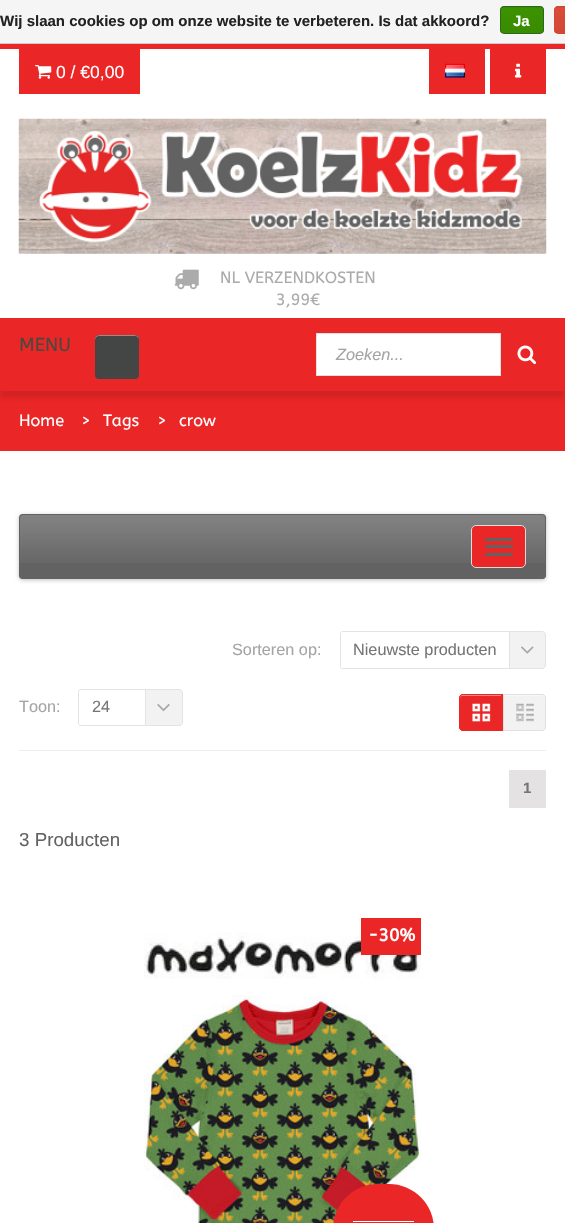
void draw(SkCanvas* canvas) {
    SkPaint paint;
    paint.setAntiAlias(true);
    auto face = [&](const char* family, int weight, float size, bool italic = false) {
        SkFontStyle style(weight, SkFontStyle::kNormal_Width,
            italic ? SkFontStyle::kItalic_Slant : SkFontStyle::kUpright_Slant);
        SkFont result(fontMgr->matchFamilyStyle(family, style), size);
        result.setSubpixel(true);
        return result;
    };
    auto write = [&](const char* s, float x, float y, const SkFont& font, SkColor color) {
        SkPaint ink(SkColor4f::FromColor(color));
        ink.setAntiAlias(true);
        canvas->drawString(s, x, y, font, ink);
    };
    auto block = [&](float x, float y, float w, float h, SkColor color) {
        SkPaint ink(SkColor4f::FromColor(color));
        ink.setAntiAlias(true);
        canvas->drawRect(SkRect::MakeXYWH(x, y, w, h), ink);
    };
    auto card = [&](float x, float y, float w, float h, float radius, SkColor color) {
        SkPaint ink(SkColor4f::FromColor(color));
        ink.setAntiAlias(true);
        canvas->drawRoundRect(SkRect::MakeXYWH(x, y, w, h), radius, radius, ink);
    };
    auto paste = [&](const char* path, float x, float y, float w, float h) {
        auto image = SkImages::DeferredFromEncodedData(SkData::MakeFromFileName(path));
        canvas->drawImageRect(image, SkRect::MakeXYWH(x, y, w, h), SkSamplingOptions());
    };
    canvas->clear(SK_ColorWHITE);
    block(0, 0, 565, 43, SkColorSetRGB(245, 245, 245));
    block(0, 43, 565, 1, SkColorSetRGB(204, 204, 204));
    auto kFont1 = face("Liberation Sans", 700, 15);
    write("Wij slaan cookies op om onze website te verbeteren. Is dat akkoord?", 0, 26, kFont1, SkColorSetRGB(34, 34, 34));
    canvas->save();
    canvas->clipPath(SkPathBuilder().moveTo(504, 6).lineTo(540, 6).cubicTo(542, 6, 544, 8, 544, 10).lineTo(544, 30).cubicTo(544, 32, 542, 34, 540, 34).lineTo(504, 34).cubicTo(502, 34, 500, 32, 500, 30).lineTo(500, 10).cubicTo(500, 8, 502, 6, 504, 6).close().detach(), true);
    {
        const SkColor colors[] = {SkColorSetRGB(60, 147, 0), SkColorSetRGB(57, 138, 0)};
        const float stops[] = {0, 1};
        const SkPoint ends[] = {{522, -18}, {522, 7.5f}};
        paint.setShader(SkGradientShader::MakeLinear(ends, colors, stops, 2, SkTileMode::kClamp));
        paint.setAlpha(255);
    }
    canvas->drawRect(SkRect::MakeXYWH(500, 6, 44, 2), paint);
    {
        const SkColor colors[] = {SkColorSetRGB(60, 147, 0), SkColorSetRGB(57, 138, 0)};
        const float stops[] = {0, 1};
        const SkPoint ends[] = {{522, 7.5f}, {522, 33}};
        paint.setShader(SkGradientShader::MakeLinear(ends, colors, stops, 2, SkTileMode::kClamp));
        paint.setAlpha(255);
    }
    canvas->drawRect(SkRect::MakeXYWH(500, 8, 44, 25), paint);
    canvas->restore();
    paint.setStyle(SkPaint::kStroke_Style);
    paint.setStrokeWidth(1);
    paint.setShader(nullptr);
    paint.setColor(SkColorSetRGB(41, 105, 29));
    canvas->drawRoundRect(SkRect::MakeXYWH(500.5f, 6.5f, 43, 27), 3.5f, 3.5f, paint);
    write("Ja", 513, 26, kFont1, SK_ColorWHITE);
    canvas->save();
    canvas->clipPath(SkPathBuilder().moveTo(558, 6).lineTo(606, 6).cubicTo(608, 6, 610, 8, 610, 10).lineTo(610, 30).cubicTo(610, 32, 608, 34, 606, 34).lineTo(558, 34).cubicTo(556, 34, 554, 32, 554, 30).lineTo(554, 10).cubicTo(554, 8, 556, 6, 558, 6).close().detach(), true);
    paint.setStyle(SkPaint::kFill_Style);
    {
        const SkColor colors[] = {SkColorSetRGB(220, 74, 56), SkColorSetRGB(209, 72, 54)};
        const float stops[] = {0, 1};
        const SkPoint ends[] = {{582, -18}, {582, 7.5f}};
        paint.setShader(SkGradientShader::MakeLinear(ends, colors, stops, 2, SkTileMode::kClamp));
        paint.setAlpha(255);
    }
    canvas->drawRect(SkRect::MakeXYWH(554, 6, 11, 2), paint);
    {
        const SkColor colors[] = {SkColorSetRGB(220, 74, 56), SkColorSetRGB(209, 72, 54)};
        const float stops[] = {0, 1};
        const SkPoint ends[] = {{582, 7.5f}, {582, 33}};
        paint.setShader(SkGradientShader::MakeLinear(ends, colors, stops, 2, SkTileMode::kClamp));
        paint.setAlpha(255);
    }
    canvas->drawRect(SkRect::MakeXYWH(554, 8, 11, 25), paint);
    canvas->restore();
    paint.setStyle(SkPaint::kStroke_Style);
    paint.setShader(nullptr);
    paint.setColor(SkColorSetRGB(209, 72, 54));
    canvas->drawRoundRect(SkRect::MakeXYWH(554.5f, 6.5f, 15, 27), 3.5f, 3.5f, paint);
    block(0, 44, 565, 5, SkColorSetRGB(235, 38, 39));
    block(19, 49, 121, 45, SkColorSetRGB(235, 38, 39));
    paste("pic1.png", 35, 65, 17, 14);
    auto kFont2 = face("Liberation Sans", 400, 17.5f);
    write("0 / €0,00", 56, 78, kFont2, SK_ColorWHITE);
    block(429, 49, 56, 45, SkColorSetRGB(235, 38, 39));
    paste("pic2.png", 445, 63, 20, 15);
    block(490, 49, 56, 45, SkColorSetRGB(235, 38, 39));
    paste("pic3.png", 515, 63, 7, 15);
    paste("pic4.png", 18, 118, 529, 136);
    paste("pic5.png", 174, 269, 25, 21);
    auto kFont3 = face("ABeeZee", 400, 16.25f);
    write("NL VERZENDKOSTEN", 220, 283, kFont3, SkColorSetRGB(171, 171, 171));
    write("3,99€", 276, 305, kFont3, SkColorSetRGB(171, 171, 171));
    block(0, 391, 565, 60, SkColorSetRGB(235, 38, 39));
    paint.setStyle(SkPaint::kFill_Style);
    paint.setColor(SkColorSetARGB(26, 0, 0, 0));
    paint.setMaskFilter(SkMaskFilter::MakeBlur(kNormal_SkBlurStyle, 2.5f));
    canvas->drawRect(SkRect::MakeXYWH(0, 324, 565, 74), paint);
    paint.setMaskFilter(nullptr);
    block(0, 318, 565, 73, SkColorSetRGB(235, 38, 39));
    auto kFont4 = face("ABeeZee", 400, 18.75f);
    write("MENU", 19, 351, kFont4, SkColorSetRGB(73, 73, 64));
    card(95, 335, 44, 44, 4, SkColorSetRGB(68, 70, 69));
    paint.setColor(SkColorSetARGB(102, 255, 255, 255));
    canvas->drawPath(SkPathBuilder().moveTo(99, 336).lineTo(135, 336).cubicTo(137, 336, 139, 338, 139, 340).cubicTo(139, 334, 134, 335, 129, 335).lineTo(105, 335).cubicTo(100, 335, 95, 334, 95, 340).cubicTo(95, 338, 97, 336, 99, 336).close().detach(), paint);
    paint.setColor(SK_ColorWHITE);
    canvas->drawRect(SkRect::MakeXYWH(316.5f, 333.5f, 184, 42), paint);
    paint.setStyle(SkPaint::kStroke_Style);
    paint.setColor(SkColorSetRGB(224, 224, 224));
    canvas->drawRect(SkRect::MakeXYWH(316.5f, 333.5f, 184, 42), paint);
    auto kFont5 = face("Liberation Sans", 400, 16.25f, true);
    write("Zoeken...", 336, 360, kFont5, SkColorSetRGB(164, 164, 164));
    paste("pic6.png", 517, 345, 20, 20);
    write("Home", 19, 426, kFont3, SK_ColorWHITE);
    write(">", 81, 426, kFont3, SK_ColorWHITE);
    write("Tags", 103, 426, kFont3, SK_ColorWHITE);
    write(">", 157, 426, kFont3, SK_ColorWHITE);
    write("crow", 179, 426, kFont3, SK_ColorWHITE);
    block(19, 514, 527, 65, SkColorSetRGB(248, 248, 248));
    paint.setStyle(SkPaint::kFill_Style);
    paint.setColor(SkColorSetARGB(64, 0, 0, 0));
    paint.setMaskFilter(SkMaskFilter::MakeBlur(kNormal_SkBlurStyle, 2));
    canvas->drawRoundRect(SkRect::MakeXYWH(19, 515, 527, 65), 4, 4, paint);
    paint.setMaskFilter(nullptr);
    card(19, 514, 527, 65, 4, SkColorSetRGB(98, 98, 98));
    paste("pic7.png", 19, 514, 527, 49);
    paint.setStyle(SkPaint::kStroke_Style);
    paint.setColor(SkColorSetRGB(98, 98, 98));
    canvas->drawRoundRect(SkRect::MakeXYWH(19.5f, 514.5f, 526, 64), 3.5f, 3.5f, paint);
    paint.setStyle(SkPaint::kFill_Style);
    paint.setColor(SkColorSetRGB(235, 38, 39));
    canvas->drawRoundRect(SkRect::MakeXYWH(471.5f, 525.5f, 54, 42), 4.5f, 4.5f, paint);
    paint.setStyle(SkPaint::kStroke_Style);
    paint.setColor(SkColorSetRGB(221, 221, 221));
    canvas->drawRoundRect(SkRect::MakeXYWH(471.5f, 525.5f, 54, 42), 4.5f, 4.5f, paint);
    card(485, 538, 28, 3, 1.5f, SkColorSetRGB(98, 98, 98));
    card(485, 545, 28, 3, 1.5f, SkColorSetRGB(98, 98, 98));
    card(485, 553, 28, 3, 1.5f, SkColorSetRGB(98, 98, 98));
    auto kFont6 = face("Liberation Sans", 400, 16.25f);
    write("Sorteren op:", 232, 655, kFont6, SkColorSetRGB(164, 164, 164));
    paint.setColor(SkColorSetRGB(228, 226, 226));
    canvas->drawPath(SkPathBuilder().moveTo(342.5f, 631.5f).lineTo(509.5f, 631.5f).lineTo(509.5f, 668.5f).lineTo(342.5f, 668.5f).cubicTo(341.5f, 668.5f, 340.5f, 667.5f, 340.5f, 666.5f).lineTo(340.5f, 633.5f).cubicTo(340.5f, 632.5f, 341.5f, 631.5f, 342.5f, 631.5f).close().detach(), paint);
    write("Nieuwste producten", 353, 655, kFont6, SkColorSetRGB(117, 117, 117));
    paint.setStyle(SkPaint::kFill_Style);
    paint.setColor(SkColorSetRGB(242, 242, 242));
    canvas->drawPath(SkPathBuilder().moveTo(509.5f, 631.5f).lineTo(542, 631.5f).cubicTo(544, 631.5f, 545.5f, 633, 545.5f, 635).lineTo(545.5f, 665).cubicTo(545.5f, 667, 544, 668.5f, 542, 668.5f).lineTo(509.5f, 668.5f).close().detach(), paint);
    paint.setStyle(SkPaint::kStroke_Style);
    paint.setColor(SkColorSetRGB(228, 226, 226));
    canvas->drawPath(SkPathBuilder().moveTo(509.5f, 631.5f).lineTo(542, 631.5f).cubicTo(544, 631.5f, 545.5f, 633, 545.5f, 635).lineTo(545.5f, 665).cubicTo(545.5f, 667, 544, 668.5f, 542, 668.5f).lineTo(509.5f, 668.5f).close().detach(), paint);
    paste("pic8.png", 521, 646, 13, 8);
    paint.setStyle(SkPaint::kFill_Style);
    paint.setColor(SkColorSetRGB(235, 38, 39));
    canvas->drawPath(SkPathBuilder().moveTo(463, 694).lineTo(503, 694).lineTo(503, 731).lineTo(463, 731).cubicTo(461, 731, 459, 729, 459, 727).lineTo(459, 698).cubicTo(459, 696, 461, 694, 463, 694).close().detach(), paint);
    paste("pic9.png", 472, 703, 19, 19);
    paint.setColor(SkColorSetRGB(244, 136, 136));
    canvas->drawPath(SkPathBuilder().moveTo(462, 696).lineTo(501, 696).lineTo(501, 695).lineTo(462, 695).cubicTo(461, 695, 460, 696, 460, 698).lineTo(460, 699).cubicTo(460, 697, 461, 696, 462, 696).close().detach(), paint);
    paint.setStyle(SkPaint::kStroke_Style);
    paint.setColor(SkColorSetRGB(235, 38, 39));
    canvas->drawPath(SkPathBuilder().moveTo(463, 694.5f).lineTo(502.5f, 694.5f).lineTo(502.5f, 730.5f).lineTo(463, 730.5f).cubicTo(461, 730.5f, 459.5f, 729, 459.5f, 727).lineTo(459.5f, 698).cubicTo(459.5f, 696, 461, 694.5f, 463, 694.5f).close().detach(), paint);
    paint.setStyle(SkPaint::kFill_Style);
    paint.setColor(SkColorSetRGB(242, 242, 242));
    canvas->drawPath(SkPathBuilder().moveTo(503, 694).lineTo(542, 694).cubicTo(544, 694, 546, 696, 546, 698).lineTo(546, 727).cubicTo(546, 729, 544, 731, 542, 731).lineTo(503, 731).close().detach(), paint);
    paste("pic10.png", 516, 703, 18, 19);
    paint.setColor(SkColorSetRGB(248, 248, 248));
    canvas->drawPath(SkPathBuilder().moveTo(504, 696).lineTo(542, 696).cubicTo(544, 696, 545, 697, 545, 699).lineTo(545, 698).cubicTo(545, 696, 544, 695, 542, 695).lineTo(504, 695).close().detach(), paint);
    paint.setStyle(SkPaint::kStroke_Style);
    paint.setColor(SkColorSetRGB(224, 224, 224));
    canvas->drawPath(SkPathBuilder().moveTo(503.5f, 694.5f).lineTo(542, 694.5f).cubicTo(544, 694.5f, 545.5f, 696, 545.5f, 698).lineTo(545.5f, 727).cubicTo(545.5f, 729, 544, 730.5f, 542, 730.5f).lineTo(503.5f, 730.5f).close().detach(), paint);
    block(19, 750, 527, 1, SkColorSetRGB(238, 238, 238));
    write("Toon:", 19, 712, kFont6, SkColorSetRGB(164, 164, 164));
    paint.setColor(SkColorSetRGB(228, 226, 226));
    canvas->drawPath(SkPathBuilder().moveTo(80.5f, 689.5f).lineTo(145.5f, 689.5f).lineTo(145.5f, 725.5f).lineTo(80.5f, 725.5f).cubicTo(79.5f, 725.5f, 78.5f, 724.5f, 78.5f, 723.5f).lineTo(78.5f, 691.5f).cubicTo(78.5f, 690.5f, 79.5f, 689.5f, 80.5f, 689.5f).close().detach(), paint);
    write("24", 92, 712, kFont6, SkColorSetRGB(117, 117, 117));
    paint.setStyle(SkPaint::kFill_Style);
    paint.setColor(SkColorSetRGB(242, 242, 242));
    canvas->drawPath(SkPathBuilder().moveTo(145.5f, 689.5f).lineTo(179, 689.5f).cubicTo(181, 689.5f, 182.5f, 691, 182.5f, 693).lineTo(182.5f, 722).cubicTo(182.5f, 724, 181, 725.5f, 179, 725.5f).lineTo(145.5f, 725.5f).close().detach(), paint);
    paint.setStyle(SkPaint::kStroke_Style);
    paint.setColor(SkColorSetRGB(228, 226, 226));
    canvas->drawPath(SkPathBuilder().moveTo(145.5f, 689.5f).lineTo(179, 689.5f).cubicTo(181, 689.5f, 182.5f, 691, 182.5f, 693).lineTo(182.5f, 722).cubicTo(182.5f, 724, 181, 725.5f, 179, 725.5f).lineTo(145.5f, 725.5f).close().detach(), paint);
    paste("pic11.png", 157, 704, 13, 8);
    block(509, 770, 37, 38, SkColorSetRGB(228, 226, 226));
    write("1", 523, 793, kFont1, SkColorSetRGB(117, 117, 117));
    auto kFont7 = face("Liberation Sans", 400, 18.75f);
    write("3 Producten", 19, 846, kFont7, SkColorSetRGB(98, 98, 98));
    paste("pic12.png", 144, 932, 277, 47);
    block(361, 918, 60, 37, SkColorSetRGB(235, 38, 39));
    auto kFont8 = face("ABeeZee", 700, 17.5f);
    write("-30%", 368, 941, kFont8, SK_ColorWHITE);
    paste("pic13.png", 144, 995, 277, 228);
    card(333, 1184, 101, 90, 50.5f, SkColorSetRGB(235, 38, 39));
    block(353, 1221, 61, 1, SK_ColorWHITE);
}
